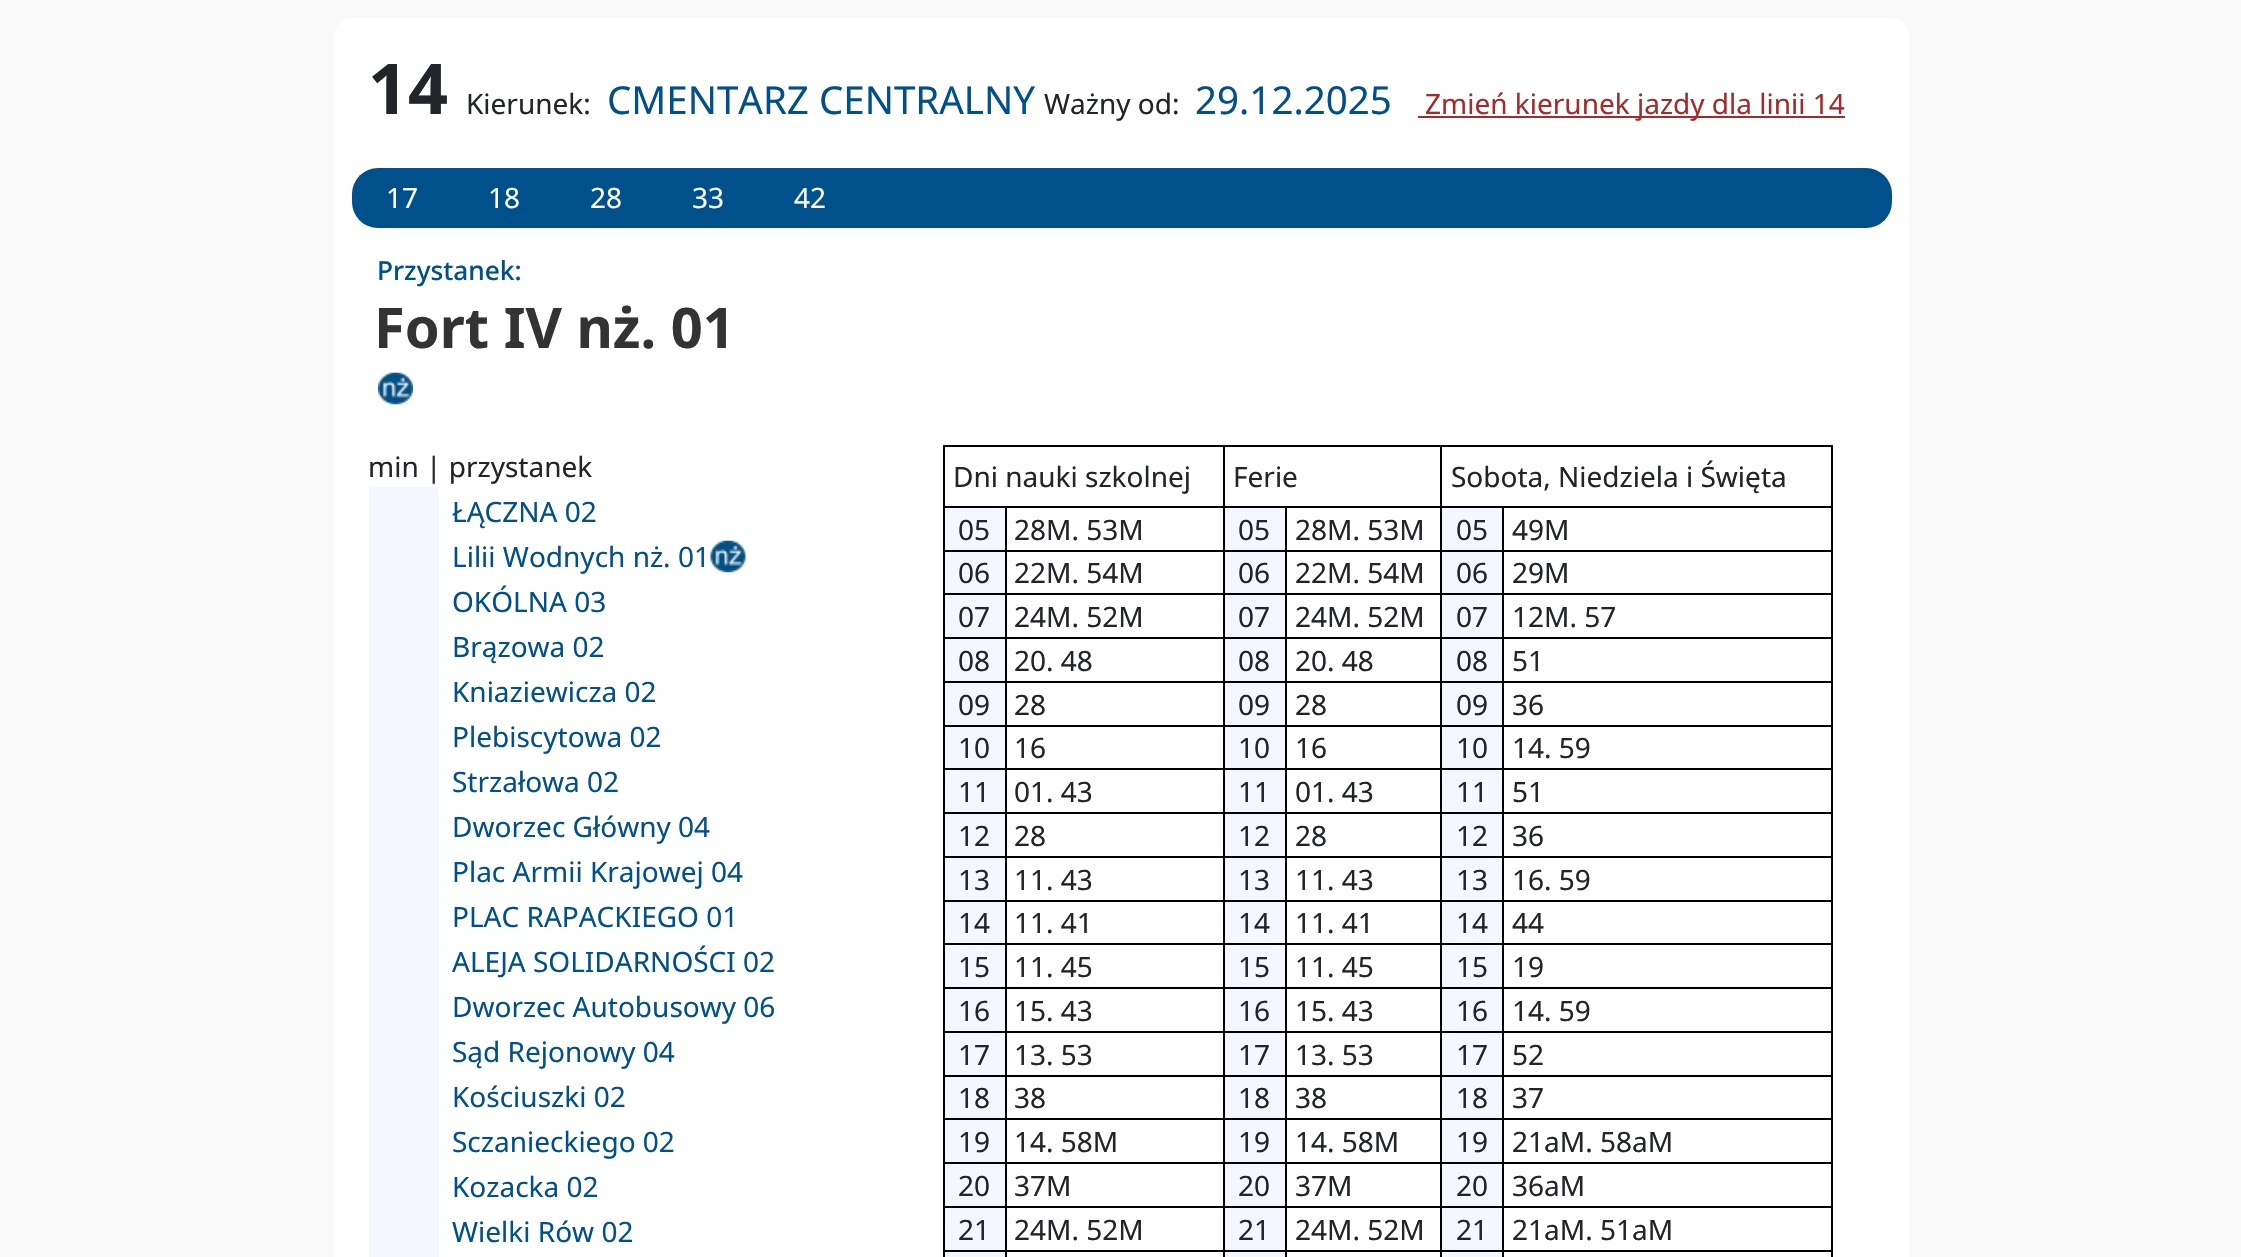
void draw(SkCanvas* canvas) {
    SkPaint paint;
    paint.setAntiAlias(true);
    auto face = [&](const char* family, int weight, float size, bool italic = false) {
        SkFontStyle style(weight, SkFontStyle::kNormal_Width,
            italic ? SkFontStyle::kItalic_Slant : SkFontStyle::kUpright_Slant);
        SkFont result(fontMgr->matchFamilyStyle(family, style), size);
        result.setSubpixel(true);
        return result;
    };
    auto write = [&](const char* s, float x, float y, const SkFont& font, SkColor color) {
        SkPaint ink(SkColor4f::FromColor(color));
        ink.setAntiAlias(true);
        canvas->drawString(s, x, y, font, ink);
    };
    auto block = [&](float x, float y, float w, float h, SkColor color) {
        SkPaint ink(SkColor4f::FromColor(color));
        ink.setAntiAlias(true);
        canvas->drawRect(SkRect::MakeXYWH(x, y, w, h), ink);
    };
    auto card = [&](float x, float y, float w, float h, float radius, SkColor color) {
        SkPaint ink(SkColor4f::FromColor(color));
        ink.setAntiAlias(true);
        canvas->drawRoundRect(SkRect::MakeXYWH(x, y, w, h), radius, radius, ink);
    };
    auto paste = [&](const char* path, float x, float y, float w, float h) {
        auto image = SkImages::DeferredFromEncodedData(SkData::MakeFromFileName(path));
        canvas->drawImageRect(image, SkRect::MakeXYWH(x, y, w, h), SkSamplingOptions());
    };
    canvas->clear(SkColorSetRGB(249, 249, 249));
    card(334, 18, 1575, 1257, 18, SK_ColorWHITE);
    auto kFont1 = face("Noto Sans", 700, 70);
    write("14", 368, 114, kFont1, SkColorSetRGB(33, 37, 41));
    auto kFont2 = face("Noto Sans", 400, 28);
    write("Kierunek:", 466, 114, kFont2, SkColorSetRGB(33, 37, 41));
    auto kFont3 = face("Noto Sans", 400, 38.5f);
    write("CMENTARZ CENTRALNY", 607, 114, kFont3, SkColorSetRGB(0, 80, 139));
    write("Ważny od:", 1044, 114, kFont2, SkColorSetRGB(33, 37, 41));
    write("29.12.2025", 1195, 114, kFont3, SkColorSetRGB(0, 80, 139));
    block(1418, 116, 427, 2, SkColorSetRGB(165, 42, 42));
    write("Zmień kierunek jazdy dla linii 14", 1425, 114, kFont2, SkColorSetRGB(165, 42, 42));
    card(352, 168, 1540, 60, 26, SkColorSetRGB(0, 80, 139));
    write("17", 386, 208, kFont2, SK_ColorWHITE);
    write("18", 488, 208, kFont2, SK_ColorWHITE);
    write("28", 590, 208, kFont2, SK_ColorWHITE);
    write("33", 692, 208, kFont2, SK_ColorWHITE);
    write("42", 794, 208, kFont2, SK_ColorWHITE);
    auto kFont4 = face("Noto Sans", 500, 26.25f);
    write("Przystanek:", 377, 280, kFont4, SkColorSetRGB(0, 80, 139));
    auto kFont5 = face("Noto Sans", 700, 56);
    write("Fort IV nż. 01", 374, 348, kFont5, SkColorSetRGB(51, 51, 51));
    paste("pic1.png", 378, 372, 35, 33);
    write("min | przystanek", 368, 477, kFont2, SkColorSetRGB(33, 37, 41));
    block(369, 487, 70, 770, SkColorSetRGB(244, 247, 255));
    write("ŁĄCZNA 02", 452, 522, kFont2, SkColorSetRGB(0, 80, 139));
    write("Lilii Wodnych nż. 01", 452, 567, kFont2, SkColorSetRGB(0, 80, 139));
    paste("pic2.png", 710, 540, 36, 33);
    write("OKÓLNA 03", 452, 612, kFont2, SkColorSetRGB(0, 80, 139));
    write("Brązowa 02", 452, 657, kFont2, SkColorSetRGB(0, 80, 139));
    write("Kniaziewicza 02", 452, 702, kFont2, SkColorSetRGB(0, 80, 139));
    write("Plebiscytowa 02", 452, 747, kFont2, SkColorSetRGB(0, 80, 139));
    write("Strzałowa 02", 452, 792, kFont2, SkColorSetRGB(0, 80, 139));
    write("Dworzec Główny 04", 452, 837, kFont2, SkColorSetRGB(0, 80, 139));
    write("Plac Armii Krajowej 04", 452, 882, kFont2, SkColorSetRGB(0, 80, 139));
    write("PLAC RAPACKIEGO 01", 452, 927, kFont2, SkColorSetRGB(0, 80, 139));
    write("ALEJA SOLIDARNOŚCI 02", 452, 972, kFont2, SkColorSetRGB(0, 80, 139));
    write("Dworzec Autobusowy 06", 452, 1017, kFont2, SkColorSetRGB(0, 80, 139));
    write("Sąd Rejonowy 04", 452, 1062, kFont2, SkColorSetRGB(0, 80, 139));
    write("Kościuszki 02", 452, 1107, kFont2, SkColorSetRGB(0, 80, 139));
    write("Sczanieckiego 02", 452, 1152, kFont2, SkColorSetRGB(0, 80, 139));
    write("Kozacka 02", 452, 1197, kFont2, SkColorSetRGB(0, 80, 139));
    write("Wielki Rów 02", 452, 1242, kFont2, SkColorSetRGB(0, 80, 139));
    block(1440, 445, 392, 2, SK_ColorBLACK);
    block(1502, 506, 330, 2, SK_ColorBLACK);
    block(1502, 550, 330, 2, SK_ColorBLACK);
    block(1502, 593, 330, 2, SK_ColorBLACK);
    block(1502, 637, 330, 2, SK_ColorBLACK);
    block(1502, 681, 330, 2, SK_ColorBLACK);
    block(1502, 725, 330, 2, SK_ColorBLACK);
    block(1502, 768, 330, 2, SK_ColorBLACK);
    block(1502, 812, 330, 2, SK_ColorBLACK);
    block(1502, 856, 330, 2, SK_ColorBLACK);
    block(1502, 900, 330, 2, SK_ColorBLACK);
    block(1502, 943, 330, 2, SK_ColorBLACK);
    block(1502, 987, 330, 2, SK_ColorBLACK);
    block(1502, 1031, 330, 2, SK_ColorBLACK);
    block(1502, 1075, 330, 2, SK_ColorBLACK);
    block(1502, 1118, 330, 2, SK_ColorBLACK);
    block(1502, 1162, 330, 2, SK_ColorBLACK);
    block(1502, 1206, 330, 2, SK_ColorBLACK);
    block(1502, 1250, 330, 2, SK_ColorBLACK);
    block(1442, 1252, 61, 5, SkColorSetRGB(244, 247, 255));
    block(1502, 1250, 2, 7, SK_ColorBLACK);
    block(1440, 1250, 63, 2, SK_ColorBLACK);
    block(1502, 1206, 2, 45, SK_ColorBLACK);
    block(1440, 1206, 63, 2, SK_ColorBLACK);
    block(1502, 1162, 2, 46, SK_ColorBLACK);
    block(1440, 1162, 63, 2, SK_ColorBLACK);
    block(1502, 1118, 2, 46, SK_ColorBLACK);
    block(1440, 1118, 63, 2, SK_ColorBLACK);
    block(1502, 1075, 2, 45, SK_ColorBLACK);
    block(1440, 1075, 63, 2, SK_ColorBLACK);
    block(1502, 1031, 2, 45, SK_ColorBLACK);
    block(1440, 1031, 63, 2, SK_ColorBLACK);
    block(1502, 987, 2, 46, SK_ColorBLACK);
    block(1440, 987, 63, 2, SK_ColorBLACK);
    block(1502, 943, 2, 46, SK_ColorBLACK);
    block(1440, 943, 63, 2, SK_ColorBLACK);
    block(1502, 900, 2, 45, SK_ColorBLACK);
    block(1440, 900, 63, 2, SK_ColorBLACK);
    block(1502, 856, 2, 45, SK_ColorBLACK);
    block(1440, 856, 63, 2, SK_ColorBLACK);
    block(1502, 812, 2, 46, SK_ColorBLACK);
    block(1440, 812, 63, 2, SK_ColorBLACK);
    block(1502, 768, 2, 46, SK_ColorBLACK);
    block(1440, 768, 63, 2, SK_ColorBLACK);
    block(1502, 725, 2, 45, SK_ColorBLACK);
    block(1440, 725, 63, 2, SK_ColorBLACK);
    block(1502, 681, 2, 45, SK_ColorBLACK);
    block(1440, 681, 63, 2, SK_ColorBLACK);
    block(1502, 637, 2, 46, SK_ColorBLACK);
    block(1440, 637, 63, 2, SK_ColorBLACK);
    block(1502, 593, 2, 46, SK_ColorBLACK);
    block(1440, 593, 63, 2, SK_ColorBLACK);
    block(1502, 550, 2, 45, SK_ColorBLACK);
    block(1440, 550, 63, 2, SK_ColorBLACK);
    block(1502, 506, 2, 45, SK_ColorBLACK);
    block(1440, 506, 63, 2, SK_ColorBLACK);
    block(1440, 1250, 2, 7, SK_ColorBLACK);
    block(1285, 1250, 157, 2, SK_ColorBLACK);
    block(1440, 1206, 2, 45, SK_ColorBLACK);
    block(1285, 1206, 157, 2, SK_ColorBLACK);
    block(1440, 1162, 2, 46, SK_ColorBLACK);
    block(1285, 1162, 157, 2, SK_ColorBLACK);
    block(1440, 1118, 2, 46, SK_ColorBLACK);
    block(1285, 1118, 157, 2, SK_ColorBLACK);
    block(1440, 1075, 2, 45, SK_ColorBLACK);
    block(1285, 1075, 157, 2, SK_ColorBLACK);
    block(1440, 1031, 2, 45, SK_ColorBLACK);
    block(1285, 1031, 157, 2, SK_ColorBLACK);
    block(1440, 987, 2, 46, SK_ColorBLACK);
    block(1285, 987, 157, 2, SK_ColorBLACK);
    block(1440, 943, 2, 46, SK_ColorBLACK);
    block(1285, 943, 157, 2, SK_ColorBLACK);
    block(1440, 900, 2, 45, SK_ColorBLACK);
    block(1285, 900, 157, 2, SK_ColorBLACK);
    block(1440, 856, 2, 45, SK_ColorBLACK);
    block(1285, 856, 157, 2, SK_ColorBLACK);
    block(1440, 812, 2, 46, SK_ColorBLACK);
    block(1285, 812, 157, 2, SK_ColorBLACK);
    block(1440, 768, 2, 46, SK_ColorBLACK);
    block(1285, 768, 157, 2, SK_ColorBLACK);
    block(1440, 725, 2, 45, SK_ColorBLACK);
    block(1285, 725, 157, 2, SK_ColorBLACK);
    block(1440, 681, 2, 45, SK_ColorBLACK);
    block(1285, 681, 157, 2, SK_ColorBLACK);
    block(1440, 637, 2, 46, SK_ColorBLACK);
    block(1285, 637, 157, 2, SK_ColorBLACK);
    block(1440, 593, 2, 46, SK_ColorBLACK);
    block(1285, 593, 157, 2, SK_ColorBLACK);
    block(1440, 550, 2, 45, SK_ColorBLACK);
    block(1285, 550, 157, 2, SK_ColorBLACK);
    block(1440, 506, 2, 45, SK_ColorBLACK);
    block(1285, 506, 157, 2, SK_ColorBLACK);
    block(1440, 445, 2, 63, SK_ColorBLACK);
    block(1223, 445, 219, 2, SK_ColorBLACK);
    block(1285, 1250, 2, 7, SK_ColorBLACK);
    block(1223, 1250, 63, 2, SK_ColorBLACK);
    block(1285, 1206, 2, 45, SK_ColorBLACK);
    block(1223, 1206, 63, 2, SK_ColorBLACK);
    block(1285, 1162, 2, 46, SK_ColorBLACK);
    block(1223, 1162, 63, 2, SK_ColorBLACK);
    block(1285, 1118, 2, 46, SK_ColorBLACK);
    block(1223, 1118, 63, 2, SK_ColorBLACK);
    block(1285, 1075, 2, 45, SK_ColorBLACK);
    block(1223, 1075, 63, 2, SK_ColorBLACK);
    block(1285, 1031, 2, 45, SK_ColorBLACK);
    block(1223, 1031, 63, 2, SK_ColorBLACK);
    block(1285, 987, 2, 46, SK_ColorBLACK);
    block(1223, 987, 63, 2, SK_ColorBLACK);
    block(1285, 943, 2, 46, SK_ColorBLACK);
    block(1223, 943, 63, 2, SK_ColorBLACK);
    block(1285, 900, 2, 45, SK_ColorBLACK);
    block(1223, 900, 63, 2, SK_ColorBLACK);
    block(1285, 856, 2, 45, SK_ColorBLACK);
    block(1223, 856, 63, 2, SK_ColorBLACK);
    block(1285, 812, 2, 46, SK_ColorBLACK);
    block(1223, 812, 63, 2, SK_ColorBLACK);
    block(1285, 768, 2, 46, SK_ColorBLACK);
    block(1223, 768, 63, 2, SK_ColorBLACK);
    block(1285, 725, 2, 45, SK_ColorBLACK);
    block(1223, 725, 63, 2, SK_ColorBLACK);
    block(1285, 681, 2, 45, SK_ColorBLACK);
    block(1223, 681, 63, 2, SK_ColorBLACK);
    block(1285, 637, 2, 46, SK_ColorBLACK);
    block(1223, 637, 63, 2, SK_ColorBLACK);
    block(1285, 593, 2, 46, SK_ColorBLACK);
    block(1223, 593, 63, 2, SK_ColorBLACK);
    block(1285, 550, 2, 45, SK_ColorBLACK);
    block(1223, 550, 63, 2, SK_ColorBLACK);
    block(1285, 506, 2, 45, SK_ColorBLACK);
    block(1223, 506, 63, 2, SK_ColorBLACK);
    block(1223, 1252, 62, 5, SkColorSetRGB(244, 247, 255));
    block(1223, 1250, 2, 7, SK_ColorBLACK);
    block(1005, 1250, 220, 2, SK_ColorBLACK);
    block(1223, 1206, 2, 45, SK_ColorBLACK);
    block(1005, 1206, 220, 2, SK_ColorBLACK);
    block(1223, 1162, 2, 46, SK_ColorBLACK);
    block(1005, 1162, 220, 2, SK_ColorBLACK);
    block(1223, 1118, 2, 46, SK_ColorBLACK);
    block(1005, 1118, 220, 2, SK_ColorBLACK);
    block(1223, 1075, 2, 45, SK_ColorBLACK);
    block(1005, 1075, 220, 2, SK_ColorBLACK);
    block(1223, 1031, 2, 45, SK_ColorBLACK);
    block(1005, 1031, 220, 2, SK_ColorBLACK);
    block(1223, 987, 2, 46, SK_ColorBLACK);
    block(1005, 987, 220, 2, SK_ColorBLACK);
    block(1223, 943, 2, 46, SK_ColorBLACK);
    block(1005, 943, 220, 2, SK_ColorBLACK);
    block(1223, 900, 2, 45, SK_ColorBLACK);
    block(1005, 900, 220, 2, SK_ColorBLACK);
    block(1223, 856, 2, 45, SK_ColorBLACK);
    block(1005, 856, 220, 2, SK_ColorBLACK);
    block(1223, 812, 2, 46, SK_ColorBLACK);
    block(1005, 812, 220, 2, SK_ColorBLACK);
    block(1223, 768, 2, 46, SK_ColorBLACK);
    block(1005, 768, 220, 2, SK_ColorBLACK);
    block(1223, 725, 2, 45, SK_ColorBLACK);
    block(1005, 725, 220, 2, SK_ColorBLACK);
    block(1223, 681, 2, 45, SK_ColorBLACK);
    block(1005, 681, 220, 2, SK_ColorBLACK);
    block(1223, 637, 2, 46, SK_ColorBLACK);
    block(1005, 637, 220, 2, SK_ColorBLACK);
    block(1223, 593, 2, 46, SK_ColorBLACK);
    block(1005, 593, 220, 2, SK_ColorBLACK);
    block(1223, 550, 2, 45, SK_ColorBLACK);
    block(1005, 550, 220, 2, SK_ColorBLACK);
    block(1223, 506, 2, 45, SK_ColorBLACK);
    block(1005, 506, 220, 2, SK_ColorBLACK);
    block(1223, 445, 2, 63, SK_ColorBLACK);
    block(943, 445, 282, 2, SK_ColorBLACK);
    block(1005, 1250, 2, 7, SK_ColorBLACK);
    block(943, 1250, 63, 2, SK_ColorBLACK);
    block(1005, 1206, 2, 45, SK_ColorBLACK);
    block(943, 1206, 63, 2, SK_ColorBLACK);
    block(1005, 1162, 2, 46, SK_ColorBLACK);
    block(943, 1162, 63, 2, SK_ColorBLACK);
    block(1005, 1118, 2, 46, SK_ColorBLACK);
    block(943, 1118, 63, 2, SK_ColorBLACK);
    block(1005, 1075, 2, 45, SK_ColorBLACK);
    block(943, 1075, 63, 2, SK_ColorBLACK);
    block(1005, 1031, 2, 45, SK_ColorBLACK);
    block(943, 1031, 63, 2, SK_ColorBLACK);
    block(1005, 987, 2, 46, SK_ColorBLACK);
    block(943, 987, 63, 2, SK_ColorBLACK);
    block(1005, 943, 2, 46, SK_ColorBLACK);
    block(943, 943, 63, 2, SK_ColorBLACK);
    block(1005, 900, 2, 45, SK_ColorBLACK);
    block(943, 900, 63, 2, SK_ColorBLACK);
    block(1005, 856, 2, 45, SK_ColorBLACK);
    block(943, 856, 63, 2, SK_ColorBLACK);
    block(1005, 812, 2, 46, SK_ColorBLACK);
    block(943, 812, 63, 2, SK_ColorBLACK);
    block(1005, 768, 2, 46, SK_ColorBLACK);
    block(943, 768, 63, 2, SK_ColorBLACK);
    block(1005, 725, 2, 45, SK_ColorBLACK);
    block(943, 725, 63, 2, SK_ColorBLACK);
    block(1005, 681, 2, 45, SK_ColorBLACK);
    block(943, 681, 63, 2, SK_ColorBLACK);
    block(1005, 637, 2, 46, SK_ColorBLACK);
    block(943, 637, 63, 2, SK_ColorBLACK);
    block(1005, 593, 2, 46, SK_ColorBLACK);
    block(943, 593, 63, 2, SK_ColorBLACK);
    block(1005, 550, 2, 45, SK_ColorBLACK);
    block(943, 550, 63, 2, SK_ColorBLACK);
    block(1005, 506, 2, 45, SK_ColorBLACK);
    block(943, 506, 63, 2, SK_ColorBLACK);
    block(943, 1252, 62, 5, SkColorSetRGB(244, 247, 255));
    block(943, 1250, 2, 7, SK_ColorBLACK);
    block(943, 1206, 2, 45, SK_ColorBLACK);
    block(943, 1162, 2, 46, SK_ColorBLACK);
    block(943, 1118, 2, 46, SK_ColorBLACK);
    block(943, 1075, 2, 45, SK_ColorBLACK);
    block(943, 1031, 2, 45, SK_ColorBLACK);
    block(943, 987, 2, 46, SK_ColorBLACK);
    block(943, 943, 2, 46, SK_ColorBLACK);
    block(943, 900, 2, 45, SK_ColorBLACK);
    block(943, 856, 2, 45, SK_ColorBLACK);
    block(943, 812, 2, 46, SK_ColorBLACK);
    block(943, 768, 2, 46, SK_ColorBLACK);
    block(943, 725, 2, 45, SK_ColorBLACK);
    block(943, 681, 2, 45, SK_ColorBLACK);
    block(943, 637, 2, 46, SK_ColorBLACK);
    block(943, 593, 2, 46, SK_ColorBLACK);
    block(943, 550, 2, 45, SK_ColorBLACK);
    block(943, 506, 2, 45, SK_ColorBLACK);
    block(943, 445, 2, 63, SK_ColorBLACK);
    write("Dni nauki szkolnej", 953, 487, kFont2, SkColorSetRGB(33, 37, 41));
    write("Ferie", 1233, 487, kFont2, SkColorSetRGB(33, 37, 41));
    block(1831, 1250, 2, 7, SK_ColorBLACK);
    block(1831, 1206, 2, 45, SK_ColorBLACK);
    block(1831, 1162, 2, 46, SK_ColorBLACK);
    block(1831, 1118, 2, 46, SK_ColorBLACK);
    block(1831, 1075, 2, 45, SK_ColorBLACK);
    block(1831, 1031, 2, 45, SK_ColorBLACK);
    block(1831, 987, 2, 46, SK_ColorBLACK);
    block(1831, 943, 2, 46, SK_ColorBLACK);
    block(1831, 900, 2, 45, SK_ColorBLACK);
    block(1831, 856, 2, 45, SK_ColorBLACK);
    block(1831, 812, 2, 46, SK_ColorBLACK);
    block(1831, 768, 2, 46, SK_ColorBLACK);
    block(1831, 725, 2, 45, SK_ColorBLACK);
    block(1831, 681, 2, 45, SK_ColorBLACK);
    block(1831, 637, 2, 46, SK_ColorBLACK);
    block(1831, 593, 2, 46, SK_ColorBLACK);
    block(1831, 550, 2, 45, SK_ColorBLACK);
    block(1831, 506, 2, 45, SK_ColorBLACK);
    block(1831, 445, 2, 63, SK_ColorBLACK);
    write("Sobota, Niedziela i Święta", 1451, 487, kFont2, SkColorSetRGB(33, 37, 41));
    block(945, 508, 60, 42, SkColorSetRGB(244, 247, 255));
    write("05", 958, 540, kFont2, SkColorSetRGB(33, 37, 41));
    write("28M. 53M", 1014, 540, kFont2, SkColorSetRGB(33, 37, 41));
    block(1225, 508, 60, 42, SkColorSetRGB(244, 247, 255));
    write("05", 1238, 540, kFont2, SkColorSetRGB(33, 37, 41));
    write("28M. 53M", 1295, 540, kFont2, SkColorSetRGB(33, 37, 41));
    block(1442, 508, 60, 42, SkColorSetRGB(244, 247, 255));
    write("05", 1456, 540, kFont2, SkColorSetRGB(33, 37, 41));
    write("49M", 1512, 540, kFont2, SkColorSetRGB(33, 37, 41));
    block(945, 552, 60, 41, SkColorSetRGB(244, 247, 255));
    write("06", 958, 583, kFont2, SkColorSetRGB(33, 37, 41));
    write("22M. 54M", 1014, 583, kFont2, SkColorSetRGB(33, 37, 41));
    block(1225, 552, 60, 41, SkColorSetRGB(244, 247, 255));
    write("06", 1238, 583, kFont2, SkColorSetRGB(33, 37, 41));
    write("22M. 54M", 1295, 583, kFont2, SkColorSetRGB(33, 37, 41));
    block(1442, 552, 60, 41, SkColorSetRGB(244, 247, 255));
    write("06", 1456, 583, kFont2, SkColorSetRGB(33, 37, 41));
    write("29M", 1512, 583, kFont2, SkColorSetRGB(33, 37, 41));
    block(945, 595, 60, 42, SkColorSetRGB(244, 247, 255));
    write("07", 958, 627, kFont2, SkColorSetRGB(33, 37, 41));
    write("24M. 52M", 1014, 627, kFont2, SkColorSetRGB(33, 37, 41));
    block(1225, 595, 60, 42, SkColorSetRGB(244, 247, 255));
    write("07", 1238, 627, kFont2, SkColorSetRGB(33, 37, 41));
    write("24M. 52M", 1295, 627, kFont2, SkColorSetRGB(33, 37, 41));
    block(1442, 595, 60, 42, SkColorSetRGB(244, 247, 255));
    write("07", 1456, 627, kFont2, SkColorSetRGB(33, 37, 41));
    write("12M. 57", 1512, 627, kFont2, SkColorSetRGB(33, 37, 41));
    block(945, 639, 60, 42, SkColorSetRGB(244, 247, 255));
    write("08", 958, 671, kFont2, SkColorSetRGB(33, 37, 41));
    write("20. 48", 1014, 671, kFont2, SkColorSetRGB(33, 37, 41));
    block(1225, 639, 60, 42, SkColorSetRGB(244, 247, 255));
    write("08", 1238, 671, kFont2, SkColorSetRGB(33, 37, 41));
    write("20. 48", 1295, 671, kFont2, SkColorSetRGB(33, 37, 41));
    block(1442, 639, 60, 42, SkColorSetRGB(244, 247, 255));
    write("08", 1456, 671, kFont2, SkColorSetRGB(33, 37, 41));
    write("51", 1512, 671, kFont2, SkColorSetRGB(33, 37, 41));
    block(945, 683, 60, 42, SkColorSetRGB(244, 247, 255));
    write("09", 958, 715, kFont2, SkColorSetRGB(33, 37, 41));
    write("28", 1014, 715, kFont2, SkColorSetRGB(33, 37, 41));
    block(1225, 683, 60, 42, SkColorSetRGB(244, 247, 255));
    write("09", 1238, 715, kFont2, SkColorSetRGB(33, 37, 41));
    write("28", 1295, 715, kFont2, SkColorSetRGB(33, 37, 41));
    block(1442, 683, 60, 42, SkColorSetRGB(244, 247, 255));
    write("09", 1456, 715, kFont2, SkColorSetRGB(33, 37, 41));
    write("36", 1512, 715, kFont2, SkColorSetRGB(33, 37, 41));
    block(945, 727, 60, 41, SkColorSetRGB(244, 247, 255));
    write("10", 958, 758, kFont2, SkColorSetRGB(33, 37, 41));
    write("16", 1014, 758, kFont2, SkColorSetRGB(33, 37, 41));
    block(1225, 727, 60, 41, SkColorSetRGB(244, 247, 255));
    write("10", 1238, 758, kFont2, SkColorSetRGB(33, 37, 41));
    write("16", 1295, 758, kFont2, SkColorSetRGB(33, 37, 41));
    block(1442, 727, 60, 41, SkColorSetRGB(244, 247, 255));
    write("10", 1456, 758, kFont2, SkColorSetRGB(33, 37, 41));
    write("14. 59", 1512, 758, kFont2, SkColorSetRGB(33, 37, 41));
    block(945, 770, 60, 42, SkColorSetRGB(244, 247, 255));
    write("11", 958, 802, kFont2, SkColorSetRGB(33, 37, 41));
    write("01. 43", 1014, 802, kFont2, SkColorSetRGB(33, 37, 41));
    block(1225, 770, 60, 42, SkColorSetRGB(244, 247, 255));
    write("11", 1238, 802, kFont2, SkColorSetRGB(33, 37, 41));
    write("01. 43", 1295, 802, kFont2, SkColorSetRGB(33, 37, 41));
    block(1442, 770, 60, 42, SkColorSetRGB(244, 247, 255));
    write("11", 1456, 802, kFont2, SkColorSetRGB(33, 37, 41));
    write("51", 1512, 802, kFont2, SkColorSetRGB(33, 37, 41));
    block(945, 814, 60, 42, SkColorSetRGB(244, 247, 255));
    write("12", 958, 846, kFont2, SkColorSetRGB(33, 37, 41));
    write("28", 1014, 846, kFont2, SkColorSetRGB(33, 37, 41));
    block(1225, 814, 60, 42, SkColorSetRGB(244, 247, 255));
    write("12", 1238, 846, kFont2, SkColorSetRGB(33, 37, 41));
    write("28", 1295, 846, kFont2, SkColorSetRGB(33, 37, 41));
    block(1442, 814, 60, 42, SkColorSetRGB(244, 247, 255));
    write("12", 1456, 846, kFont2, SkColorSetRGB(33, 37, 41));
    write("36", 1512, 846, kFont2, SkColorSetRGB(33, 37, 41));
    block(945, 858, 60, 42, SkColorSetRGB(244, 247, 255));
    write("13", 958, 890, kFont2, SkColorSetRGB(33, 37, 41));
    write("11. 43", 1014, 890, kFont2, SkColorSetRGB(33, 37, 41));
    block(1225, 858, 60, 42, SkColorSetRGB(244, 247, 255));
    write("13", 1238, 890, kFont2, SkColorSetRGB(33, 37, 41));
    write("11. 43", 1295, 890, kFont2, SkColorSetRGB(33, 37, 41));
    block(1442, 858, 60, 42, SkColorSetRGB(244, 247, 255));
    write("13", 1456, 890, kFont2, SkColorSetRGB(33, 37, 41));
    write("16. 59", 1512, 890, kFont2, SkColorSetRGB(33, 37, 41));
    block(945, 902, 60, 41, SkColorSetRGB(244, 247, 255));
    write("14", 958, 933, kFont2, SkColorSetRGB(33, 37, 41));
    write("11. 41", 1014, 933, kFont2, SkColorSetRGB(33, 37, 41));
    block(1225, 902, 60, 41, SkColorSetRGB(244, 247, 255));
    write("14", 1238, 933, kFont2, SkColorSetRGB(33, 37, 41));
    write("11. 41", 1295, 933, kFont2, SkColorSetRGB(33, 37, 41));
    block(1442, 902, 60, 41, SkColorSetRGB(244, 247, 255));
    write("14", 1456, 933, kFont2, SkColorSetRGB(33, 37, 41));
    write("44", 1512, 933, kFont2, SkColorSetRGB(33, 37, 41));
    block(945, 945, 60, 42, SkColorSetRGB(244, 247, 255));
    write("15", 958, 977, kFont2, SkColorSetRGB(33, 37, 41));
    write("11. 45", 1014, 977, kFont2, SkColorSetRGB(33, 37, 41));
    block(1225, 945, 60, 42, SkColorSetRGB(244, 247, 255));
    write("15", 1238, 977, kFont2, SkColorSetRGB(33, 37, 41));
    write("11. 45", 1295, 977, kFont2, SkColorSetRGB(33, 37, 41));
    block(1442, 945, 60, 42, SkColorSetRGB(244, 247, 255));
    write("15", 1456, 977, kFont2, SkColorSetRGB(33, 37, 41));
    write("19", 1512, 977, kFont2, SkColorSetRGB(33, 37, 41));
    block(945, 989, 60, 42, SkColorSetRGB(244, 247, 255));
    write("16", 958, 1021, kFont2, SkColorSetRGB(33, 37, 41));
    write("15. 43", 1014, 1021, kFont2, SkColorSetRGB(33, 37, 41));
    block(1225, 989, 60, 42, SkColorSetRGB(244, 247, 255));
    write("16", 1238, 1021, kFont2, SkColorSetRGB(33, 37, 41));
    write("15. 43", 1295, 1021, kFont2, SkColorSetRGB(33, 37, 41));
    block(1442, 989, 60, 42, SkColorSetRGB(244, 247, 255));
    write("16", 1456, 1021, kFont2, SkColorSetRGB(33, 37, 41));
    write("14. 59", 1512, 1021, kFont2, SkColorSetRGB(33, 37, 41));
    block(945, 1033, 60, 42, SkColorSetRGB(244, 247, 255));
    write("17", 958, 1065, kFont2, SkColorSetRGB(33, 37, 41));
    write("13. 53", 1014, 1065, kFont2, SkColorSetRGB(33, 37, 41));
    block(1225, 1033, 60, 42, SkColorSetRGB(244, 247, 255));
    write("17", 1238, 1065, kFont2, SkColorSetRGB(33, 37, 41));
    write("13. 53", 1295, 1065, kFont2, SkColorSetRGB(33, 37, 41));
    block(1442, 1033, 60, 42, SkColorSetRGB(244, 247, 255));
    write("17", 1456, 1065, kFont2, SkColorSetRGB(33, 37, 41));
    write("52", 1512, 1065, kFont2, SkColorSetRGB(33, 37, 41));
    block(945, 1077, 60, 41, SkColorSetRGB(244, 247, 255));
    write("18", 958, 1108, kFont2, SkColorSetRGB(33, 37, 41));
    write("38", 1014, 1108, kFont2, SkColorSetRGB(33, 37, 41));
    block(1225, 1077, 60, 41, SkColorSetRGB(244, 247, 255));
    write("18", 1238, 1108, kFont2, SkColorSetRGB(33, 37, 41));
    write("38", 1295, 1108, kFont2, SkColorSetRGB(33, 37, 41));
    block(1442, 1077, 60, 41, SkColorSetRGB(244, 247, 255));
    write("18", 1456, 1108, kFont2, SkColorSetRGB(33, 37, 41));
    write("37", 1512, 1108, kFont2, SkColorSetRGB(33, 37, 41));
    block(945, 1120, 60, 42, SkColorSetRGB(244, 247, 255));
    write("19", 958, 1152, kFont2, SkColorSetRGB(33, 37, 41));
    write("14. 58M", 1014, 1152, kFont2, SkColorSetRGB(33, 37, 41));
    block(1225, 1120, 60, 42, SkColorSetRGB(244, 247, 255));
    write("19", 1238, 1152, kFont2, SkColorSetRGB(33, 37, 41));
    write("14. 58M", 1295, 1152, kFont2, SkColorSetRGB(33, 37, 41));
    block(1442, 1120, 60, 42, SkColorSetRGB(244, 247, 255));
    write("19", 1456, 1152, kFont2, SkColorSetRGB(33, 37, 41));
    write("21aM. 58aM", 1512, 1152, kFont2, SkColorSetRGB(33, 37, 41));
    block(945, 1164, 60, 42, SkColorSetRGB(244, 247, 255));
    write("20", 958, 1196, kFont2, SkColorSetRGB(33, 37, 41));
    write("37M", 1014, 1196, kFont2, SkColorSetRGB(33, 37, 41));
    block(1225, 1164, 60, 42, SkColorSetRGB(244, 247, 255));
    write("20", 1238, 1196, kFont2, SkColorSetRGB(33, 37, 41));
    write("37M", 1295, 1196, kFont2, SkColorSetRGB(33, 37, 41));
    block(1442, 1164, 60, 42, SkColorSetRGB(244, 247, 255));
    write("20", 1456, 1196, kFont2, SkColorSetRGB(33, 37, 41));
    write("36aM", 1512, 1196, kFont2, SkColorSetRGB(33, 37, 41));
    block(945, 1208, 60, 42, SkColorSetRGB(244, 247, 255));
    write("21", 958, 1240, kFont2, SkColorSetRGB(33, 37, 41));
    write("24M. 52M", 1014, 1240, kFont2, SkColorSetRGB(33, 37, 41));
    block(1225, 1208, 60, 42, SkColorSetRGB(244, 247, 255));
    write("21", 1238, 1240, kFont2, SkColorSetRGB(33, 37, 41));
    write("24M. 52M", 1295, 1240, kFont2, SkColorSetRGB(33, 37, 41));
    block(1442, 1208, 60, 42, SkColorSetRGB(244, 247, 255));
    write("21", 1456, 1240, kFont2, SkColorSetRGB(33, 37, 41));
    write("21aM. 51aM", 1512, 1240, kFont2, SkColorSetRGB(33, 37, 41));
}
